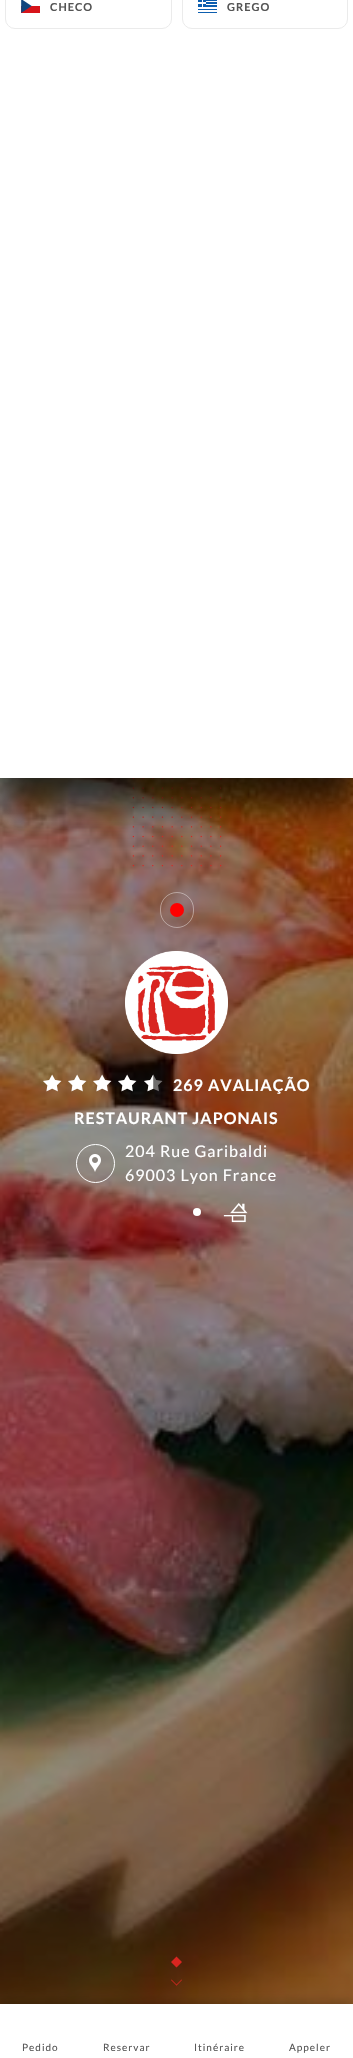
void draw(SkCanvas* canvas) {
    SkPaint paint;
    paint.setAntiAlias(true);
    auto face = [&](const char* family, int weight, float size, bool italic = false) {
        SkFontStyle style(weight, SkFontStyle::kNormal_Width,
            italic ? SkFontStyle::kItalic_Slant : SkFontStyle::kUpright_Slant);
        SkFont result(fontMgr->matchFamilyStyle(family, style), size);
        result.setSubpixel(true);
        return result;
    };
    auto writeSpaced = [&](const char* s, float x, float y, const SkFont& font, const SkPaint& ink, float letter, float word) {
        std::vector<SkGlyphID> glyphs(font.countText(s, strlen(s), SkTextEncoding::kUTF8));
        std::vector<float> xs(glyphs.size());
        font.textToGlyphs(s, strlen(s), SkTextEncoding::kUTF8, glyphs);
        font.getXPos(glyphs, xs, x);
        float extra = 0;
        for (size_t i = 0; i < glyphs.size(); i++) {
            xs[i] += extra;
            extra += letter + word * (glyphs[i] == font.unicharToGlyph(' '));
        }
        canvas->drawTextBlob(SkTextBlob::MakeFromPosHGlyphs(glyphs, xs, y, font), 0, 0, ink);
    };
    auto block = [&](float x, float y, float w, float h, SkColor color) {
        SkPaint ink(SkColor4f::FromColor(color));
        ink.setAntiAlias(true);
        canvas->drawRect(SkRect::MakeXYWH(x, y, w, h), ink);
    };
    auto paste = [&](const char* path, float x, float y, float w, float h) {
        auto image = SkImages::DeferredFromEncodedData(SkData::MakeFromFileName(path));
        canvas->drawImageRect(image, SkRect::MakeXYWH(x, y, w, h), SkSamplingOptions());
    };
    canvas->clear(SK_ColorWHITE);
    paste("pic3.png", 0, 778, 353, 1226);
    paste("pic4.png", 132, 778, 90, 89);
    paint.setColor(SkColorSetARGB(128, 0, 0, 0));
    paint.setMaskFilter(SkMaskFilter::MakeBlur(kNormal_SkBlurStyle, 17));
    canvas->drawRect(SkRect::MakeXYWH(0, -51, 353, 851), paint);
    paint.setMaskFilter(nullptr);
    paint.setMaskFilter(SkMaskFilter::MakeBlur(kNormal_SkBlurStyle, 17));
    canvas->drawRect(SkRect::MakeXYWH(0, -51, 353, 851), paint);
    paint.setMaskFilter(nullptr);
    block(0, 0, 353, 778, SK_ColorWHITE);
    paint.setStyle(SkPaint::kStroke_Style);
    paint.setStrokeWidth(1);
    paint.setColor(SkColorSetRGB(235, 235, 235));
    canvas->drawRoundRect(SkRect::MakeXYWH(5.5f, -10.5f, 166, 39), 9.5f, 9.5f, paint);
    paste("pic1.png", 21, 0, 19, 13);
    auto kFont1 = face("Lato", 700, 11);
    paint.setStyle(SkPaint::kFill_Style);
    paint.setColor(SkColorSetRGB(85, 85, 85));
    writeSpaced("CHECO", 50, 11, kFont1, paint, 1, 0);
    paint.setStyle(SkPaint::kStroke_Style);
    paint.setColor(SkColorSetRGB(235, 235, 235));
    canvas->drawRoundRect(SkRect::MakeXYWH(182.5f, -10.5f, 165, 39), 9.5f, 9.5f, paint);
    paste("pic2.png", 198, 0, 19, 13);
    paint.setStyle(SkPaint::kFill_Style);
    paint.setColor(SkColorSetRGB(85, 85, 85));
    writeSpaced("GREGO", 227, 11, kFont1, paint, 1, 0);
    paint.setStyle(SkPaint::kStroke_Style);
    paint.setColor(SkColorSetARGB(102, 255, 255, 255));
    canvas->drawRoundRect(SkRect::MakeXYWH(160.5f, 892.5f, 33, 35), 16.5f, 16.5f, paint);
    paint.setStyle(SkPaint::kFill_Style);
    paint.setColor(SkColorSetRGB(255, 0, 0));
    canvas->drawCircle(177, 910, 7, paint);
    paste("pic5.png", 125, 951, 103, 103);
    paste("pic6.png", 43, 1074, 19, 18);
    paste("pic7.png", 68, 1074, 19, 18);
    paste("pic8.png", 93, 1074, 19, 18);
    paste("pic9.png", 118, 1074, 19, 18);
    paste("pic10.png", 144, 1074, 19, 18);
    auto kFont2 = face("Lato", 700, 16);
    paint.setColor(SK_ColorWHITE);
    writeSpaced("269 AVALIAÇÃO", 173, 1091, kFont2, paint, 1, 0);
    writeSpaced("RESTAURANT JAPONAIS", 74, 1124, kFont2, paint, 1, 0);
    paint.setStyle(SkPaint::kStroke_Style);
    canvas->drawCircle(95.5f, 1163.5f, 19, paint);
    paste("pic11.png", 89, 1154, 12, 18);
    auto kFont3 = face("Lato", 400, 16);
    paint.setStyle(SkPaint::kFill_Style);
    writeSpaced("204 Rue Garibaldi", 125, 1157, kFont3, paint, 1, 0);
    writeSpaced("69003 Lyon France", 125, 1181, kFont3, paint, 1, 0);
    canvas->drawCircle(197, 1212, 4, paint);
    paste("pic12.png", 223, 1203, 25, 20);
    paint.setColor(SkColorSetRGB(217, 37, 32));
    canvas->drawPath(SkPathBuilder().moveTo(176.5f, 1956.5f).lineTo(182, 1962).lineTo(176.5f, 1967.5f).lineTo(171, 1962).close().moveTo(181.5f, 1979.5f).lineTo(182, 1980).lineTo(176.5f, 1985.5f).lineTo(176, 1985).close().detach(), paint);
    canvas->drawPath(SkPathBuilder().moveTo(171.5f, 1979.5f).lineTo(177, 1985).lineTo(176.5f, 1985.5f).lineTo(171, 1980).close().detach(), paint);
    paint.setColor(SkColorSetARGB(51, 0, 0, 0));
    paint.setMaskFilter(SkMaskFilter::MakeBlur(kNormal_SkBlurStyle, 5));
    canvas->drawRect(SkRect::MakeXYWH(0, 2001, 353, 54), paint);
    paint.setMaskFilter(nullptr);
    block(0, 2004, 353, 54, SK_ColorWHITE);
    auto kFont4 = face("Lato", 400, 10);
    paint.setColor(SkColorSetRGB(85, 85, 85));
    writeSpaced("Pedido", 22, 2051, kFont4, paint, 1, 0);
    writeSpaced("Reservar", 103, 2051, kFont4, paint, 1, 0);
    writeSpaced("Itinéraire", 194, 2051, kFont4, paint, 1, 0);
    writeSpaced("Appeler", 289, 2051, kFont4, paint, 1, 0);
}
